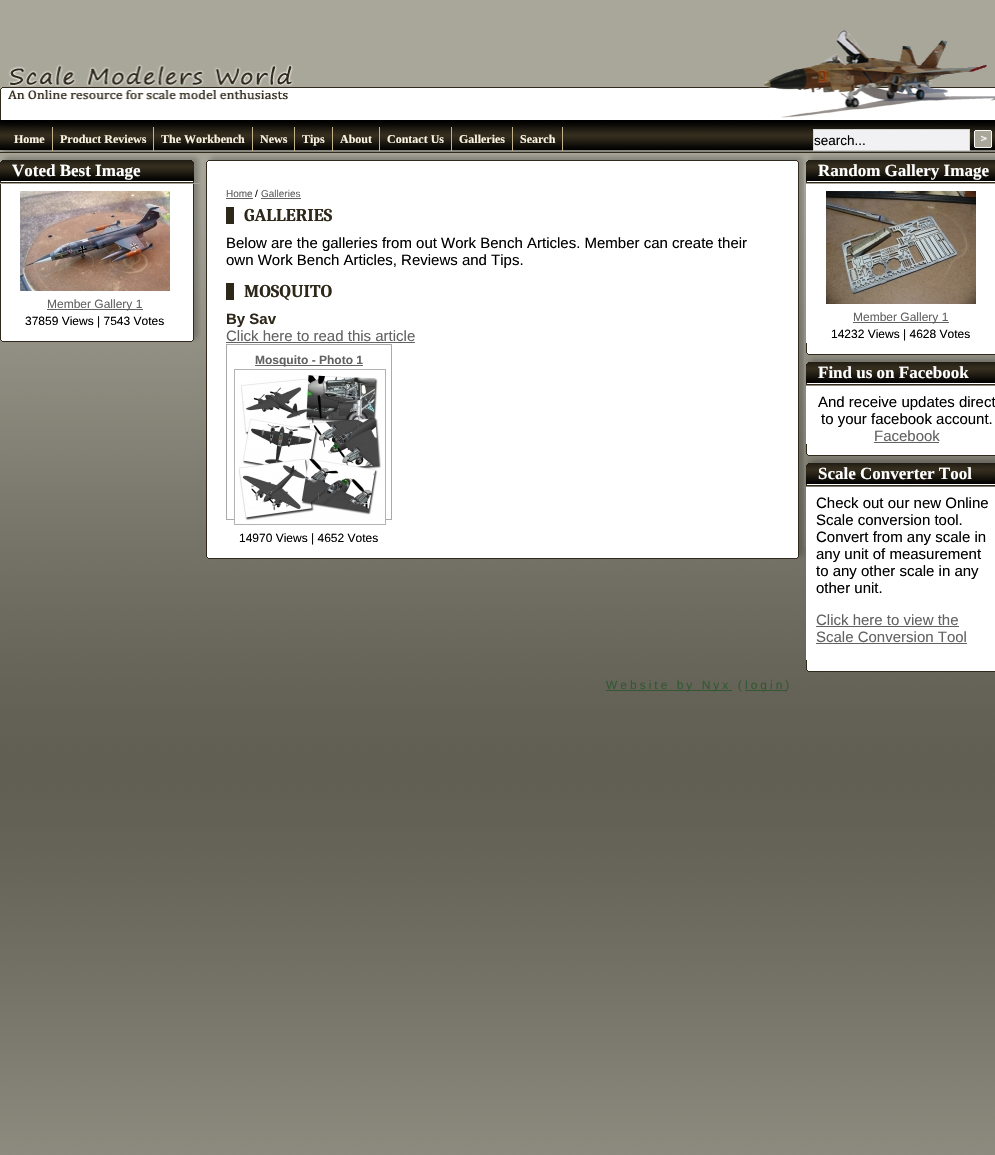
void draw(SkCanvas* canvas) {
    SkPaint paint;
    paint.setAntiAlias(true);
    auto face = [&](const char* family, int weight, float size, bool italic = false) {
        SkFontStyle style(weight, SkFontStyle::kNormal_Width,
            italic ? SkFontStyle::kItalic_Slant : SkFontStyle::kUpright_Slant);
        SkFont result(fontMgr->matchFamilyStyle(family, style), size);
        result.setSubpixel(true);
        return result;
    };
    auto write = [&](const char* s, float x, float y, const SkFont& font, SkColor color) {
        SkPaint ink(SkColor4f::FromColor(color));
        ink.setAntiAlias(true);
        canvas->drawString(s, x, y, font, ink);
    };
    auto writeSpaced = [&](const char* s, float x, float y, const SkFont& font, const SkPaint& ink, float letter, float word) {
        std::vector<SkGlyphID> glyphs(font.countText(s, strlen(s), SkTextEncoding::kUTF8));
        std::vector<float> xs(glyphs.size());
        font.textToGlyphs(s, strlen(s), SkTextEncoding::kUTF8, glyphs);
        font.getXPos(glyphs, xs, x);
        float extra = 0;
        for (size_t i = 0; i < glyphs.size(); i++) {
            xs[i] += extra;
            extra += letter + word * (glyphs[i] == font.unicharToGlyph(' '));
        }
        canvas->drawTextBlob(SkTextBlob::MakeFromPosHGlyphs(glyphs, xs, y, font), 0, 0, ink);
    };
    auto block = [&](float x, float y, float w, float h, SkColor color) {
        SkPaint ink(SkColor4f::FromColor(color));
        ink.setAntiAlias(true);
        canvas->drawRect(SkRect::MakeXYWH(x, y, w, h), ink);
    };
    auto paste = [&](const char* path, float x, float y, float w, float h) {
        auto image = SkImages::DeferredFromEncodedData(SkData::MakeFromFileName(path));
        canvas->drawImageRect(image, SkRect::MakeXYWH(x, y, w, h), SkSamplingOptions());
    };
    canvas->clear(SK_ColorWHITE);
    paste("pic1.png", 0, 0, 995, 1155);
    paste("pic2.png", 0, 87, 995, 33);
    paste("pic3.png", 8, 64, 286, 36);
    paste("pic4.png", 764, 30, 231, 88);
    paste("pic5.png", 0, 120, 995, 33);
    block(52, 127, 1, 24, SkColorSetRGB(196, 179, 138));
    auto kFont1 = face("Liberation Serif", 700, 12);
    write("Home", 14, 143, kFont1, SkColorSetRGB(251, 243, 225));
    block(153, 127, 1, 24, SkColorSetRGB(196, 179, 138));
    write("Product Reviews", 60, 143, kFont1, SkColorSetRGB(251, 243, 225));
    block(252, 127, 1, 24, SkColorSetRGB(196, 179, 138));
    write("The Workbench", 161, 143, kFont1, SkColorSetRGB(251, 243, 225));
    block(294, 127, 1, 24, SkColorSetRGB(196, 179, 138));
    write("News", 260, 143, kFont1, SkColorSetRGB(251, 243, 225));
    block(332, 127, 1, 24, SkColorSetRGB(196, 179, 138));
    write("Tips", 302, 143, kFont1, SkColorSetRGB(251, 243, 225));
    block(379, 127, 1, 24, SkColorSetRGB(196, 179, 138));
    write("About", 340, 143, kFont1, SkColorSetRGB(251, 243, 225));
    block(451, 127, 1, 24, SkColorSetRGB(196, 179, 138));
    write("Contact Us", 387, 143, kFont1, SkColorSetRGB(251, 243, 225));
    block(512, 127, 1, 24, SkColorSetRGB(196, 179, 138));
    write("Galleries", 459, 143, kFont1, SkColorSetRGB(251, 243, 225));
    block(562, 127, 1, 24, SkColorSetRGB(196, 179, 138));
    write("Search", 520, 143, kFont1, SkColorSetRGB(251, 243, 225));
    paint.setColor(SkColorSetRGB(241, 241, 243));
    canvas->drawRect(SkRect::MakeXYWH(813.5f, 129.5f, 156, 21), paint);
    paint.setStyle(SkPaint::kStroke_Style);
    paint.setStrokeWidth(1);
    paint.setColor(SkColorSetRGB(212, 212, 212));
    canvas->drawRect(SkRect::MakeXYWH(813.5f, 129.5f, 156, 21), paint);
    auto kFont2 = face("Liberation Sans", 400, 13.5f);
    write("search...", 814, 145, kFont2, SK_ColorBLACK);
    paste("pic6.png", 974, 130, 18, 18);
    paste("pic7.png", 0, 154, 201, 29);
    auto kFont3 = face("Liberation Serif", 700, 17);
    write("Voted Best Image", 12, 176, kFont3, SK_ColorWHITE);
    paste("pic8.png", 0, 184, 201, 146);
    paste("pic9.png", 20, 191, 150, 100);
    block(47, 309, 96, 1, SkColorSetRGB(98, 98, 98));
    auto kFont4 = face("Liberation Sans", 400, 12);
    write("Member Gallery 1", 47, 308, kFont4, SkColorSetRGB(98, 98, 98));
    write("37859 Views | 7543 Votes", 25, 325, kFont4, SK_ColorBLACK);
    paste("pic10.png", 0, 330, 201, 12);
    paste("pic11.png", 206, 154, 600, 11);
    paste("pic12.png", 206, 165, 598, 382);
    auto kFont5 = face("Liberation Sans", 400, 10);
    write("Home", 226, 197, kFont5, SkColorSetRGB(98, 98, 98));
    block(226, 198, 27, 1, SkColorSetRGB(98, 98, 98));
    write("/", 255, 197, kFont5, SK_ColorBLACK);
    write("Galleries", 261, 197, kFont5, SkColorSetRGB(98, 98, 98));
    block(261, 198, 40, 1, SkColorSetRGB(98, 98, 98));
    block(226, 207, 8, 17, SkColorSetRGB(46, 40, 27));
    auto kFont6 = face("Caladea", 700, 18);
    write("GALLERIES", 244, 221, kFont6, SkColorSetRGB(46, 40, 27));
    auto kFont7 = face("Liberation Sans", 400, 15);
    write("Below are the galleries from out Work Bench Articles. Member can create their", 226, 248, kFont7, SK_ColorBLACK);
    write("own Work Bench Articles, Reviews and Tips.", 226, 265, kFont7, SK_ColorBLACK);
    block(226, 283, 8, 17, SkColorSetRGB(46, 40, 27));
    write("MOSQUITO", 244, 297, kFont6, SkColorSetRGB(46, 40, 27));
    auto kFont8 = face("Liberation Sans", 700, 15);
    write("By Sav", 226, 324, kFont8, SkColorSetRGB(46, 40, 27));
    write("Click here to read this article", 226, 341, kFont7, SkColorSetRGB(98, 98, 98));
    block(226, 342, 189, 1, SkColorSetRGB(98, 98, 98));
    paint.setColor(SkColorSetRGB(170, 170, 170));
    canvas->drawRect(SkRect::MakeXYWH(226.5f, 344.5f, 165, 175), paint);
    block(255, 365, 108, 1, SkColorSetRGB(98, 98, 98));
    auto kFont9 = face("Liberation Sans", 700, 12);
    write("Mosquito - Photo 1", 255, 364, kFont9, SkColorSetRGB(98, 98, 98));
    paint.setColor(SkColorSetRGB(178, 178, 178));
    canvas->drawRect(SkRect::MakeXYWH(234.5f, 369.5f, 151, 155), paint);
    paste("pic13.png", 235, 375, 150, 146);
    write("14970 Views | 4652 Votes", 239, 542, kFont4, SK_ColorBLACK);
    paste("pic14.png", 206, 547, 600, 12);
    paste("pic15.png", 806, 154, 189, 29);
    write("Random Gallery Image", 818, 176, kFont3, SK_ColorWHITE);
    block(806, 184, 189, 159, SK_ColorWHITE);
    paste("pic16.png", 826, 191, 150, 113);
    block(853, 322, 96, 1, SkColorSetRGB(98, 98, 98));
    write("Member Gallery 1", 853, 321, kFont4, SkColorSetRGB(98, 98, 98));
    write("14232 Views | 4628 Votes", 831, 338, kFont4, SK_ColorBLACK);
    paste("pic17.png", 806, 343, 189, 12);
    paste("pic18.png", 806, 356, 189, 29);
    write("Find us on Facebook", 818, 378, kFont3, SK_ColorWHITE);
    block(806, 386, 189, 58, SK_ColorWHITE);
    write("And receive updates direct", 818, 407, kFont7, SK_ColorBLACK);
    write("to your facebook account.", 821, 424, kFont7, SK_ColorBLACK);
    write("Facebook", 874, 441, kFont7, SkColorSetRGB(98, 98, 98));
    block(874, 442, 65, 1, SkColorSetRGB(98, 98, 98));
    paste("pic19.png", 806, 444, 189, 12);
    paste("pic20.png", 806, 457, 189, 29);
    write("Scale Converter Tool", 818, 479, kFont3, SK_ColorWHITE);
    block(806, 487, 189, 173, SK_ColorWHITE);
    write("Check out our new Online", 816, 508, kFont7, SK_ColorBLACK);
    write("Scale conversion tool.", 816, 525, kFont7, SK_ColorBLACK);
    write("Convert from any scale in", 816, 542, kFont7, SK_ColorBLACK);
    write("any unit of measurement", 816, 559, kFont7, SK_ColorBLACK);
    write("to any other scale in any", 816, 576, kFont7, SK_ColorBLACK);
    write("other unit.", 816, 593, kFont7, SK_ColorBLACK);
    write("Click here to view the", 816, 625, kFont7, SkColorSetRGB(98, 98, 98));
    block(816, 626, 143, 1, SkColorSetRGB(98, 98, 98));
    write("Scale Conversion Tool", 816, 642, kFont7, SkColorSetRGB(98, 98, 98));
    block(816, 643, 151, 1, SkColorSetRGB(98, 98, 98));
    paste("pic21.png", 806, 660, 189, 12);
    block(606, 690, 126, 1, SkColorSetRGB(50, 88, 50));
    paint.setStyle(SkPaint::kFill_Style);
    paint.setColor(SkColorSetRGB(50, 88, 50));
    writeSpaced("Website by Nyx (", 606, 689, kFont4, paint, 3, 0);
    block(745, 690, 41, 1, SkColorSetRGB(50, 88, 50));
    writeSpaced("login)", 745, 689, kFont4, paint, 3, 0);
}
